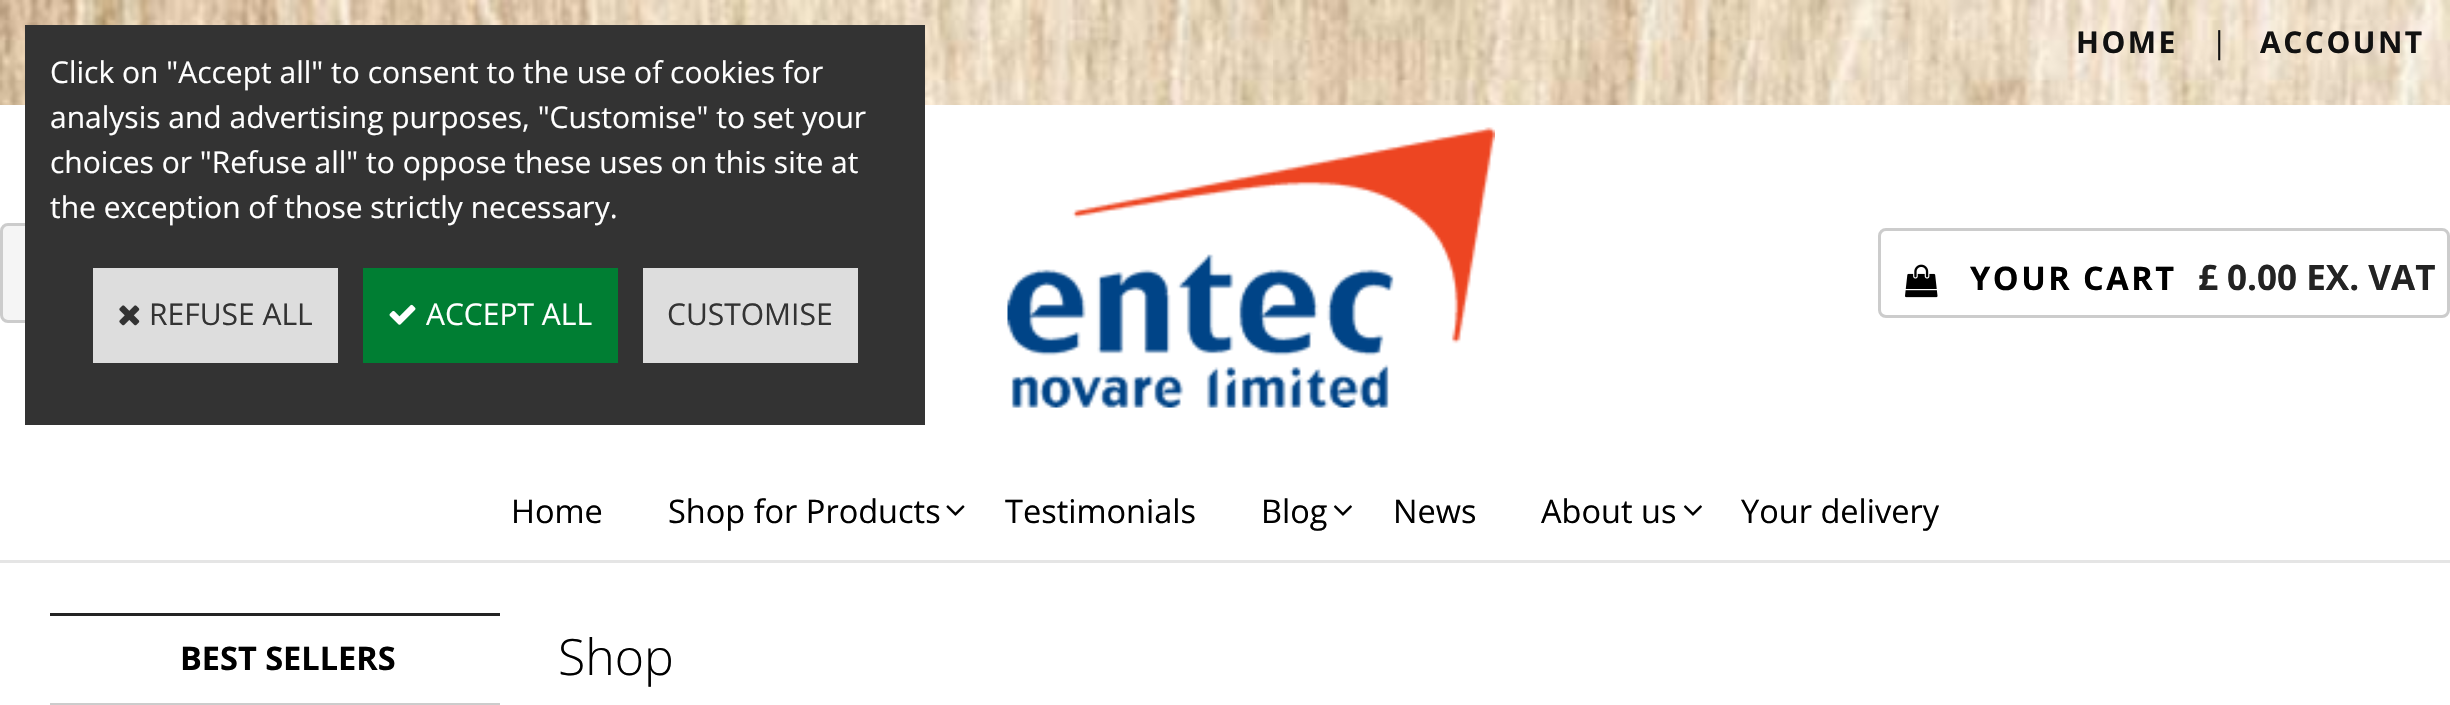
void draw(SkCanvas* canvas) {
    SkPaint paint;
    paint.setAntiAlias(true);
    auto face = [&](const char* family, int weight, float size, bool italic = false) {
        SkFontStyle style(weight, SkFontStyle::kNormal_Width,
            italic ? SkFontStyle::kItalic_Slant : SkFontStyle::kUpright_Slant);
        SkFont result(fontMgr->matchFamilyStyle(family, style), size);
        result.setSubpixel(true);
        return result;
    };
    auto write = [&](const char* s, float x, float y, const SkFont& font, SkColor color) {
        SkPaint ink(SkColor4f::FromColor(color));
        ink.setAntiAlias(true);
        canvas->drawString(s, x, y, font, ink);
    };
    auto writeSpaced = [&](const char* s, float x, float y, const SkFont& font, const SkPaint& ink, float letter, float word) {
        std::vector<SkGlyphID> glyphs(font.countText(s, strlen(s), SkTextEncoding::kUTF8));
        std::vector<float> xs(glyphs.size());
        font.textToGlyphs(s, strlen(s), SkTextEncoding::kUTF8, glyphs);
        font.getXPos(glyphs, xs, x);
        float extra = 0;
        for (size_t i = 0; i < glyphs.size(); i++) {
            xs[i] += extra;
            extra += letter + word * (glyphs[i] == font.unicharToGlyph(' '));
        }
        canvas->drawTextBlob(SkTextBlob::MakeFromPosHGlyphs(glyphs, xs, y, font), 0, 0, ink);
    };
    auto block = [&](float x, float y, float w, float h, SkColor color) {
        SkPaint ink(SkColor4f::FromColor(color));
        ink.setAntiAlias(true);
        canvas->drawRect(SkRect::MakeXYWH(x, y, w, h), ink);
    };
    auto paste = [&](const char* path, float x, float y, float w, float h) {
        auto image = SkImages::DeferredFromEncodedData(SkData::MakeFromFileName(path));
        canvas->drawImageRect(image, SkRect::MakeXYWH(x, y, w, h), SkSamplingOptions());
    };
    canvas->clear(SK_ColorWHITE);
    paste("pic1.png", 0, 0, 2450, 105);
    paint.setColor(SkColorSetRGB(245, 245, 245));
    canvas->drawRoundRect(SkRect::MakeXYWH(1.5f, 224.5f, 622, 97), 6.5f, 6.5f, paint);
    paint.setStyle(SkPaint::kStroke_Style);
    paint.setStrokeWidth(3);
    paint.setColor(SkColorSetRGB(204, 204, 204));
    canvas->drawRoundRect(SkRect::MakeXYWH(1.5f, 224.5f, 622, 97), 6.5f, 6.5f, paint);
    block(25, 25, 900, 400, SkColorSetRGB(51, 51, 51));
    auto kFont1 = face("Open Sans", 400, 30);
    write("Click on \"Accept all\" to consent to the use of cookies for", 50, 83, kFont1, SK_ColorWHITE);
    write("analysis and advertising purposes, \"Customise\" to set your", 50, 128, kFont1, SK_ColorWHITE);
    write("choices or \"Refuse all\" to oppose these uses on this site at", 50, 173, kFont1, SK_ColorWHITE);
    write("the exception of those strictly necessary.", 50, 218, kFont1, SK_ColorWHITE);
    block(93, 268, 245, 95, SkColorSetRGB(221, 221, 221));
    paste("pic2.png", 119, 305, 21, 21);
    write("REFUSE ALL", 149, 325, kFont1, SkColorSetRGB(51, 51, 51));
    block(363, 268, 255, 95, SkColorSetRGB(0, 126, 51));
    paste("pic3.png", 389, 304, 27, 21);
    write("ACCEPT ALL", 426, 325, kFont1, SK_ColorWHITE);
    block(643, 268, 215, 95, SkColorSetRGB(221, 221, 221));
    write("CUSTOMISE", 667, 325, kFont1, SkColorSetRGB(51, 51, 51));
    block(0, 560, 2450, 3, SkColorSetRGB(229, 229, 229));
    auto kFont2 = face("Open Sans", 700, 30);
    paint.setStyle(SkPaint::kFill_Style);
    paint.setColor(SkColorSetRGB(17, 17, 17));
    writeSpaced("HOME", 2076, 53, kFont2, paint, 2.5f, 0);
    write("|", 2211, 53, kFont1, SkColorSetRGB(17, 17, 17));
    writeSpaced("ACCOUNT", 2260, 53, kFont2, paint, 2.5f, 0);
    paste("pic4.png", 1007, 127, 488, 281);
    paint.setStyle(SkPaint::kStroke_Style);
    paint.setColor(SkColorSetRGB(204, 204, 204));
    canvas->drawRoundRect(SkRect::MakeXYWH(1879.5f, 229.5f, 569, 87), 6.5f, 6.5f, paint);
    paste("pic5.png", 1905, 264, 33, 34);
    auto kFont3 = face("Open Sans", 700, 32.5f);
    paint.setStyle(SkPaint::kFill_Style);
    paint.setColor(SK_ColorBLACK);
    writeSpaced("YOUR CART", 1970, 290, kFont3, paint, 2.5f, 0);
    auto kFont4 = face("Open Sans", 700, 35);
    write("£ 0.00 EX. VAT", 2198, 290, kFont4, SkColorSetRGB(35, 35, 35));
    auto kFont5 = face("Open Sans", 400, 32.5f);
    write("Home", 511, 523, kFont5, SK_ColorBLACK);
    write("Shop for Products", 668, 523, kFont5, SK_ColorBLACK);
    paste("pic6.png", 946, 505, 19, 11);
    write("Testimonials", 1005, 523, kFont5, SK_ColorBLACK);
    write("Blog", 1261, 523, kFont5, SK_ColorBLACK);
    paste("pic7.png", 1333, 505, 19, 11);
    write("News", 1393, 523, kFont5, SK_ColorBLACK);
    write("About us", 1541, 523, kFont5, SK_ColorBLACK);
    paste("pic7.png", 1683, 505, 19, 11);
    write("Your delivery", 1741, 523, kFont5, SK_ColorBLACK);
    block(50, 613, 450, 3, SkColorSetRGB(35, 35, 35));
    block(50, 703, 450, 2, SkColorSetRGB(204, 204, 204));
    write("BEST SELLERS", 180, 670, kFont3, SK_ColorBLACK);
    auto kFont6 = face("Open Sans", 300, 50);
    write("Shop", 558, 675, kFont6, SK_ColorBLACK);
}
